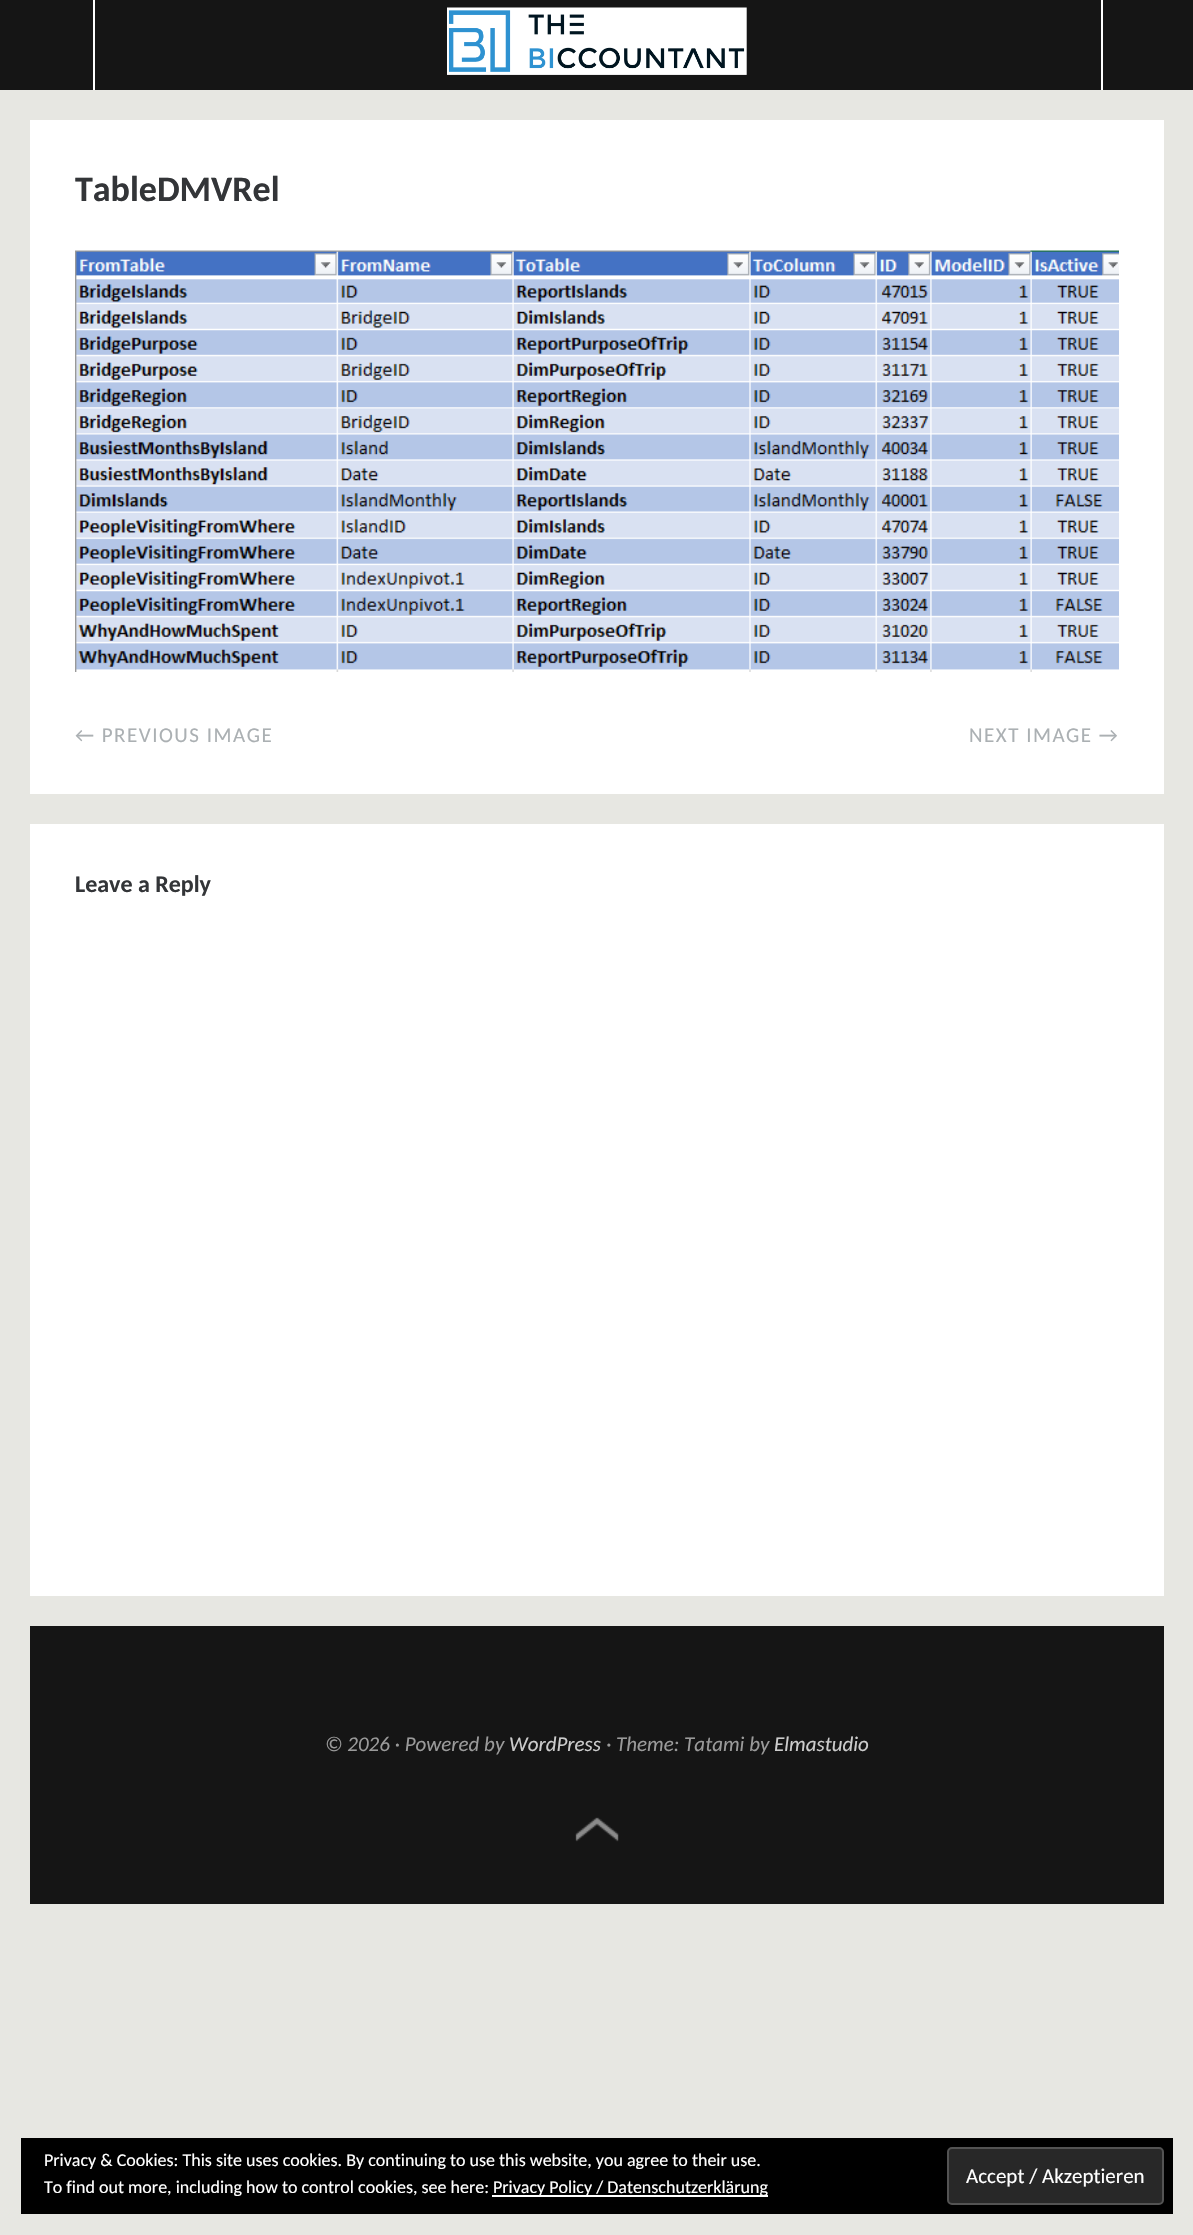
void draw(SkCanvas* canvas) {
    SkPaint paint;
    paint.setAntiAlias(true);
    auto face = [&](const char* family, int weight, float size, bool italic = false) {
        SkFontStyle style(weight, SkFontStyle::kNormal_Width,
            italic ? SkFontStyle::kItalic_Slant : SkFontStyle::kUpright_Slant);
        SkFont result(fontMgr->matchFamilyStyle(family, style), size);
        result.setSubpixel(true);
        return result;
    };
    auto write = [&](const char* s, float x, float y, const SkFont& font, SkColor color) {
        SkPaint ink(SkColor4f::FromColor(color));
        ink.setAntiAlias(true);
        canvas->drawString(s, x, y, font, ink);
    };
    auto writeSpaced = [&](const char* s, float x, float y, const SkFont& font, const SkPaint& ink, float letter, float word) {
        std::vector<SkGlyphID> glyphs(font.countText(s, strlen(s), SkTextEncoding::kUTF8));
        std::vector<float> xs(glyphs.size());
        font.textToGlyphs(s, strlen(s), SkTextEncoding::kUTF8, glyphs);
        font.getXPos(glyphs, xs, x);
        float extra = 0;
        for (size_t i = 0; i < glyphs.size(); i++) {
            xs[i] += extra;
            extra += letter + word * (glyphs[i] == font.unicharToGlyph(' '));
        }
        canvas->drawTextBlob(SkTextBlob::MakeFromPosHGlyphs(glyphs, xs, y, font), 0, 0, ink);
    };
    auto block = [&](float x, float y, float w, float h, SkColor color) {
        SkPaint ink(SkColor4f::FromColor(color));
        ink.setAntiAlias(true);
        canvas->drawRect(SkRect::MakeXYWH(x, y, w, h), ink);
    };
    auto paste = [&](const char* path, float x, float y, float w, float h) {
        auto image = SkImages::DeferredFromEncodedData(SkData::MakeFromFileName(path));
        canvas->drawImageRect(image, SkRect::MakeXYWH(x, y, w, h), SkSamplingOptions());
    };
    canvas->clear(SkColorSetRGB(231, 231, 226));
    block(0, 0, 1193, 90, SkColorSetRGB(21, 21, 21));
    paste("pic1.png", 447, 7, 300, 68);
    block(93, 0, 2, 90, SK_ColorWHITE);
    block(1101, 0, 2, 90, SK_ColorWHITE);
    block(30, 120, 1134, 674, SK_ColorWHITE);
    auto kFont1 = face("Carlito", 700, 36);
    write("TableDMVRel", 75, 201, kFont1, SkColorSetRGB(51, 53, 56));
    paste("pic2.png", 75, 250, 1044, 422);
    auto kFont2 = face("Carlito", 400, 21);
    paint.setColor(SkColorSetRGB(171, 176, 179));
    writeSpaced("← PREVIOUS IMAGE", 75, 742, kFont2, paint, 1.5f, 0);
    writeSpaced("NEXT IMAGE →", 969, 742, kFont2, paint, 1.5f, 0);
    block(30, 824, 1134, 772, SK_ColorWHITE);
    auto kFont3 = face("Carlito", 700, 24);
    write("Leave a Reply", 75, 892, kFont3, SkColorSetRGB(51, 53, 56));
    block(30, 1626, 1134, 278, SkColorSetRGB(21, 21, 21));
    auto kFont4 = face("Carlito", 400, 21, true);
    write("© 2026 · Powered by", 325, 1751, kFont4, SkColorSetRGB(154, 154, 154));
    write("WordPress", 509, 1751, kFont4, SkColorSetRGB(204, 204, 204));
    write("· Theme: Tatami by", 606, 1751, kFont4, SkColorSetRGB(154, 154, 154));
    write("Elmastudio", 774, 1751, kFont4, SkColorSetRGB(204, 204, 204));
    paste("pic3.png", 575, 1817, 44, 25);
    block(21, 2138, 1152, 76, SK_ColorBLACK);
    auto kFont5 = face("Carlito", 400, 18);
    write("Privacy & Cookies: This site uses cookies. By continuing to use this website, you agree to their use.", 44, 2166, kFont5, SK_ColorWHITE);
    write("To find out more, including how to control cookies, see here:", 44, 2193, kFont5, SK_ColorWHITE);
    block(492, 2195, 276, 2, SK_ColorWHITE);
    write("Privacy Policy / Datenschutzerklärung", 493, 2193, kFont5, SK_ColorWHITE);
    paint.setColor(SkColorSetRGB(40, 40, 40));
    canvas->drawRoundRect(SkRect::MakeXYWH(948, 2148, 215, 56), 4, 4, paint);
    paint.setStyle(SkPaint::kStroke_Style);
    paint.setStrokeWidth(2);
    paint.setColor(SkColorSetRGB(83, 83, 83));
    canvas->drawRoundRect(SkRect::MakeXYWH(948, 2148, 215, 56), 4, 4, paint);
    write("Accept / Akzeptieren", 966, 2183, kFont2, SK_ColorWHITE);
}
